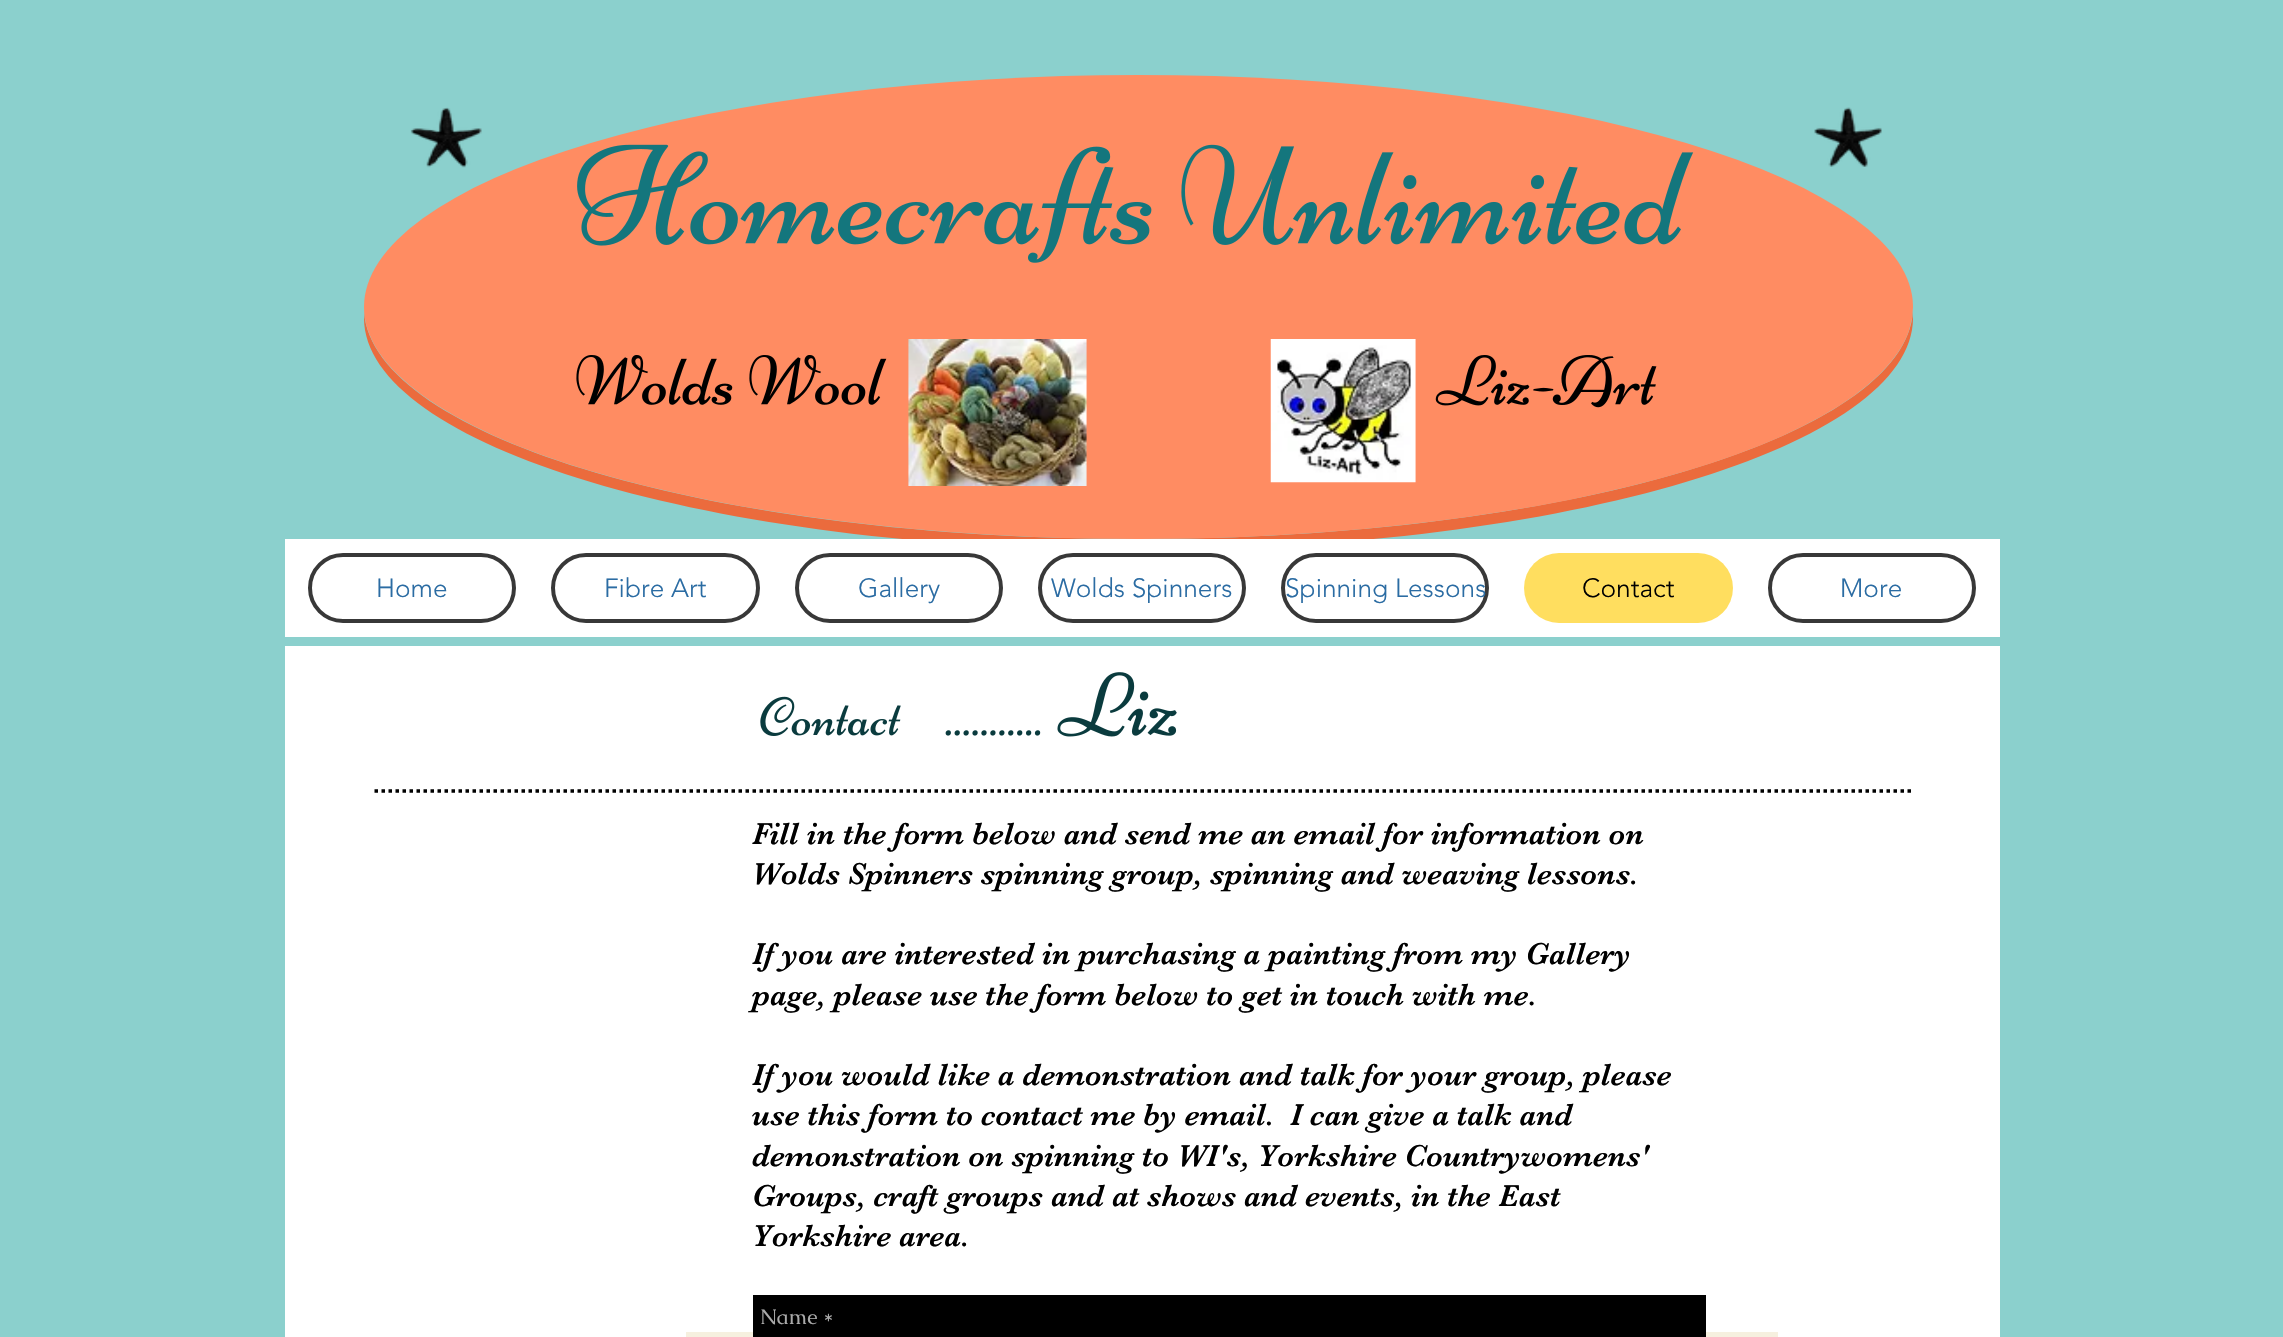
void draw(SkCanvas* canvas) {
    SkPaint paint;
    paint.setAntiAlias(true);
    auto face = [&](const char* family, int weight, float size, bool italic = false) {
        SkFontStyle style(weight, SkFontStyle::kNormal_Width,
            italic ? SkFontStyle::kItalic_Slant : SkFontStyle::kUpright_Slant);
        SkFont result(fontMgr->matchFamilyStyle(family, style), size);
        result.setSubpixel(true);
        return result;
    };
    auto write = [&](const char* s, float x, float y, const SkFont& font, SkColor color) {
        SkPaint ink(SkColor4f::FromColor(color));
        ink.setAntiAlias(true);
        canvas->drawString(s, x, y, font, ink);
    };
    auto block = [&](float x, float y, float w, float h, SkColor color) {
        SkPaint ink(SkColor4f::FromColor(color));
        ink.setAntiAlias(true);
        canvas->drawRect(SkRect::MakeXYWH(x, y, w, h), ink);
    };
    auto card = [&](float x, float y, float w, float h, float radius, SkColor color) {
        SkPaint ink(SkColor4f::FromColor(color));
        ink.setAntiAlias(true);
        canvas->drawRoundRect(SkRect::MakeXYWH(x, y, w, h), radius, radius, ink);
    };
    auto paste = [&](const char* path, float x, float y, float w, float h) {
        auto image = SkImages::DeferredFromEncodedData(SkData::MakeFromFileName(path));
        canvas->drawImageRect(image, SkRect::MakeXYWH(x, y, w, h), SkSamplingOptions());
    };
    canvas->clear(SkColorSetRGB(139, 208, 205));
    paint.setColor(SkColorSetRGB(235, 107, 61));
    canvas->drawPath(SkPathBuilder().moveTo(364, 312).lineTo(364, 318).cubicTo(364, 446, 711, 550, 1138, 550).cubicTo(1566, 550, 1913, 446, 1913, 318).lineTo(1913, 311).cubicTo(1906, 437, 1562, 539, 1138, 539).cubicTo(716, 539, 373, 438, 364, 312).close().detach(), paint);
    paint.setColor(SkColorSetRGB(255, 140, 98));
    canvas->drawOval(SkRect::MakeXYWH(364, 75, 1549, 464), paint);
    paste("pic1.png", 410, 107, 72, 61);
    paste("pic2.png", 1814, 107, 68, 60);
    paste("pic3.png", 577, 144, 575, 119);
    paste("pic4.png", 1181, 144, 513, 101);
    paste("pic5.png", 576, 355, 311, 50);
    paste("pic6.png", 908, 339, 179, 147);
    paste("pic7.png", 1270, 339, 146, 144);
    paste("pic8.png", 1435, 355, 222, 53);
    block(285, 539, 1715, 98, SK_ColorWHITE);
    paint.setStyle(SkPaint::kStroke_Style);
    paint.setStrokeWidth(4);
    paint.setColor(SkColorSetRGB(56, 56, 56));
    canvas->drawRoundRect(SkRect::MakeXYWH(310, 555, 204, 66), 33, 33, paint);
    auto kFont1 = face("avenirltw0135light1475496", 300, 26.25f);
    write("Home", 376, 597, kFont1, SkColorSetRGB(43, 108, 163));
    canvas->drawRoundRect(SkRect::MakeXYWH(553, 555, 205, 66), 33, 33, paint);
    write("Fibre Art", 604, 597, kFont1, SkColorSetRGB(43, 108, 163));
    canvas->drawRoundRect(SkRect::MakeXYWH(797, 555, 204, 66), 33, 33, paint);
    write("Gallery", 858, 597, kFont1, SkColorSetRGB(43, 108, 163));
    canvas->drawRoundRect(SkRect::MakeXYWH(1040, 555, 204, 66), 33, 33, paint);
    write("Wolds Spinners", 1051, 597, kFont1, SkColorSetRGB(43, 108, 163));
    canvas->drawRoundRect(SkRect::MakeXYWH(1283, 555, 204, 66), 33, 33, paint);
    write("Spinning Lessons", 1285, 597, kFont1, SkColorSetRGB(43, 108, 163));
    card(1524, 553, 209, 70, 35, SkColorSetRGB(255, 222, 95));
    write("Contact", 1582, 597, kFont1, SK_ColorBLACK);
    canvas->drawRoundRect(SkRect::MakeXYWH(1770, 555, 204, 66), 33, 33, paint);
    write("More", 1840, 597, kFont1, SkColorSetRGB(43, 108, 163));
    block(285, 646, 1715, 691, SK_ColorWHITE);
    paste("pic9.png", 760, 696, 281, 40);
    paste("pic10.png", 1057, 672, 120, 65);
    paint.setStrokeWidth(3.5f);
    paint.setColor(SK_ColorBLACK);
    paint.setPathEffect(SkDashPathEffect::Make({{3.5f, 3.5f}}, 0));
    canvas->drawPath(SkPathBuilder().moveTo(374.5f, 791).lineTo(1913, 791).detach(), paint);
    paint.setPathEffect(nullptr);
    auto kFont2 = face("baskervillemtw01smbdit", 400, 31.5f);
    write("Fill in the form below and send me an email for information on", 752, 844, kFont2, SK_ColorBLACK);
    write("Wolds Spinners spinning group, spinning and weaving lessons.", 752, 884, kFont2, SK_ColorBLACK);
    write("If you are interested in purchasing a painting from my Gallery", 752, 964, kFont2, SK_ColorBLACK);
    write("page, please use the form below to get in touch with me.", 752, 1005, kFont2, SK_ColorBLACK);
    write("If you would like a demonstration and talk for your group, please", 752, 1085, kFont2, SK_ColorBLACK);
    write("use this form to contact me by email.  I can give a talk and", 752, 1125, kFont2, SK_ColorBLACK);
    write("demonstration on spinning to WI's, Yorkshire Countrywomens'", 752, 1166, kFont2, SK_ColorBLACK);
    write("Groups, craft groups and at shows and events, in the East", 752, 1206, kFont2, SK_ColorBLACK);
    write("Yorkshire area.", 752, 1246, kFont2, SK_ColorBLACK);
    block(686, 1332, 1092, 5, SkColorSetRGB(246, 240, 223));
    block(753, 1295, 953, 42, SK_ColorBLACK);
    auto kFont3 = face("Caudex", 400, 21);
    write("Name *", 760, 1324, kFont3, SkColorSetRGB(169, 169, 169));
}
